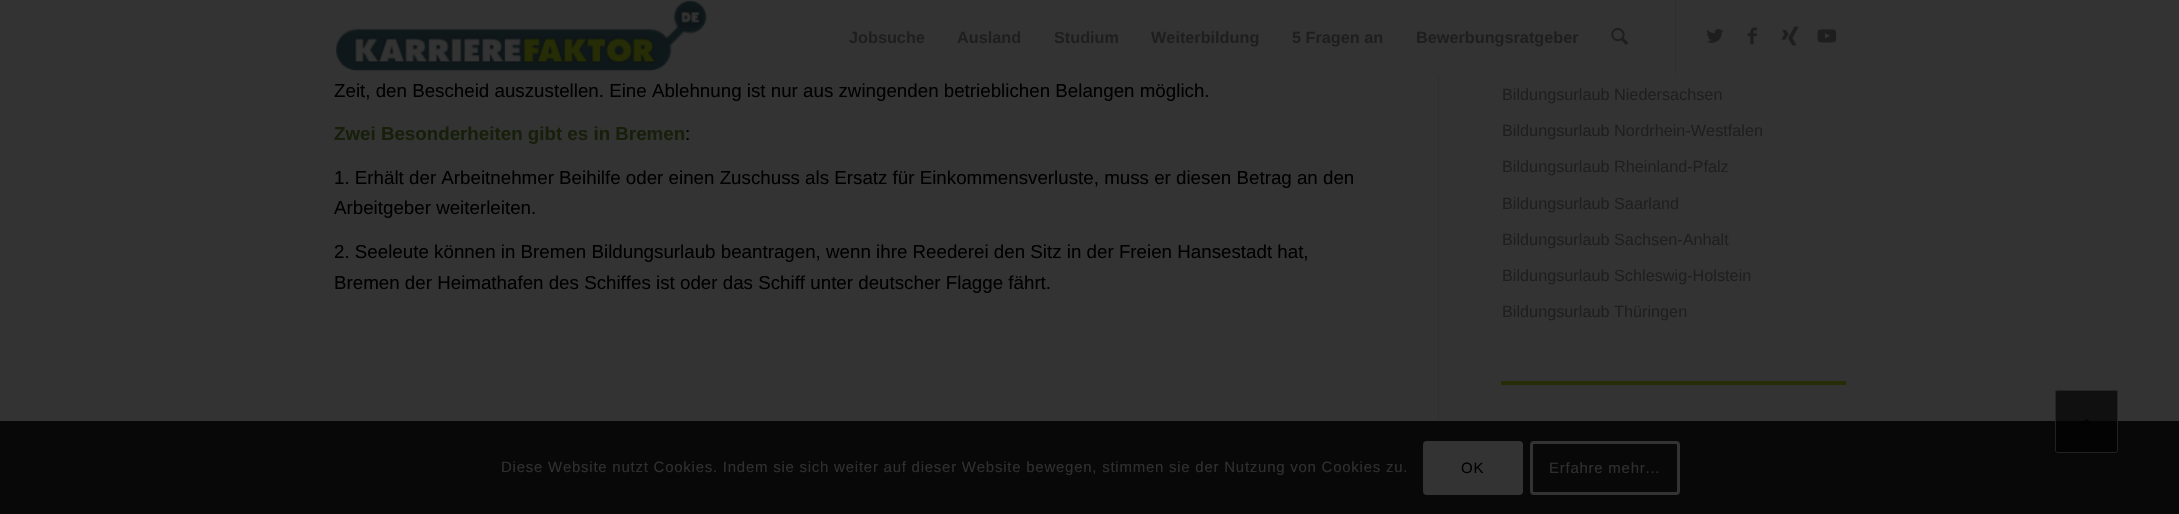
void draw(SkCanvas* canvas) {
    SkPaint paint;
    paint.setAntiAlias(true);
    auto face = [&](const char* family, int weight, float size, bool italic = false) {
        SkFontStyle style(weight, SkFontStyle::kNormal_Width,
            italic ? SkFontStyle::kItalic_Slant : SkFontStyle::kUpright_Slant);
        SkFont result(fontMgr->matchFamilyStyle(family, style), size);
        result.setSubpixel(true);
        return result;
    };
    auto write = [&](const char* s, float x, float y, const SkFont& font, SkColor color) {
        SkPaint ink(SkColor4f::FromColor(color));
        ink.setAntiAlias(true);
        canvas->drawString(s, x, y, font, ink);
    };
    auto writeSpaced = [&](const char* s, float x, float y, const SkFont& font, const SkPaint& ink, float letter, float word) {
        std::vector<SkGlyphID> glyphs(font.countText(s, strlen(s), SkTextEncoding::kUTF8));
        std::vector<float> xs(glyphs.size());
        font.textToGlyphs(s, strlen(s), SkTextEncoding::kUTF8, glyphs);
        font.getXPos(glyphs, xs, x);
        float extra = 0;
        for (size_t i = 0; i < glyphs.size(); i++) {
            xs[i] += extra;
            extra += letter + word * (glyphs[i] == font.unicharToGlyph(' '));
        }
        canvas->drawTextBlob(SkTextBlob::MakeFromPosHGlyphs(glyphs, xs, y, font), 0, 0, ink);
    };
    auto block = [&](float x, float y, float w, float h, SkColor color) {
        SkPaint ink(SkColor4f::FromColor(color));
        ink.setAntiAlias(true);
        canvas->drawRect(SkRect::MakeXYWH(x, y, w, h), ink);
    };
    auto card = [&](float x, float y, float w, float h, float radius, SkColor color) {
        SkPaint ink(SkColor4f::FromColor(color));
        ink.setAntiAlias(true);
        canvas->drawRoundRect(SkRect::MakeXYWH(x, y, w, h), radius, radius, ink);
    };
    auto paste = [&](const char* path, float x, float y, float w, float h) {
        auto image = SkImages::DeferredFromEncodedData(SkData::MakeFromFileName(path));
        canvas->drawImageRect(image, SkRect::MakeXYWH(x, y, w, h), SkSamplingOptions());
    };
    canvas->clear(SkColorSetRGB(51, 51, 51));
    block(0, 421, 2179, 93, SkColorSetRGB(8, 8, 8));
    paste("pic1.png", 335, 0, 372, 72);
    block(1675, 0, 1, 75, SkColorSetRGB(47, 47, 47));
    auto kFont1 = face("Liberation Sans", 700, 16.25f);
    write("Jobsuche", 849, 43, kFont1, SkColorSetRGB(30, 30, 30));
    write("Ausland", 957, 43, kFont1, SkColorSetRGB(30, 30, 30));
    write("Studium", 1054, 43, kFont1, SkColorSetRGB(30, 30, 30));
    write("Weiterbildung", 1151, 43, kFont1, SkColorSetRGB(30, 30, 30));
    write("5 Fragen an", 1292, 43, kFont1, SkColorSetRGB(30, 30, 30));
    write("Bewerbungsratgeber", 1416, 43, kFont1, SkColorSetRGB(30, 30, 30));
    paste("pic2.png", 1611, 27, 17, 18);
    paste("pic3.png", 1706, 29, 18, 14);
    paste("pic4.png", 1747, 27, 10, 18);
    paste("pic5.png", 1781, 26, 18, 20);
    paste("pic6.png", 1817, 29, 20, 14);
    auto kFont2 = face("Liberation Sans", 400, 18.75f);
    write("Zeit, den Bescheid auszustellen. Eine Ablehnung ist nur aus zwingenden betrieblichen Belangen möglich.", 334, 97, kFont2, SK_ColorBLACK);
    auto kFont3 = face("Liberation Sans", 700, 18.75f);
    write("Zwei Besonderheiten gibt es in Bremen", 334, 140, kFont3, SkColorSetRGB(23, 30, 10));
    write(":", 685, 140, kFont2, SK_ColorBLACK);
    write("1. Erhält der Arbeitnehmer Beihilfe oder einen Zuschuss als Ersatz für Einkommensverluste, muss er diesen Betrag an den", 334, 184, kFont2, SK_ColorBLACK);
    write("Arbeitgeber weiterleiten.", 334, 214, kFont2, SK_ColorBLACK);
    write("2. Seeleute können in Bremen Bildungsurlaub beantragen, wenn ihre Reederei den Sitz in der Freien Hansestadt hat,", 334, 258, kFont2, SK_ColorBLACK);
    write("Bremen der Heimathafen des Schiffes ist oder das Schiff unter deutscher Flagge fährt.", 334, 289, kFont2, SK_ColorBLACK);
    block(1438, 75, 1, 346, SkColorSetRGB(47, 47, 47));
    block(1501, 381, 345, 4, SkColorSetRGB(38, 45, 6));
    auto kFont4 = face("Liberation Sans", 400, 16.25f);
    write("Bildungsurlaub Niedersachsen", 1502, 100, kFont4, SkColorSetRGB(30, 30, 30));
    write("Bildungsurlaub Nordrhein-Westfalen", 1502, 136, kFont4, SkColorSetRGB(30, 30, 30));
    write("Bildungsurlaub Rheinland-Pfalz", 1502, 172, kFont4, SkColorSetRGB(30, 30, 30));
    write("Bildungsurlaub Saarland", 1502, 209, kFont4, SkColorSetRGB(30, 30, 30));
    write("Bildungsurlaub Sachsen-Anhalt", 1502, 245, kFont4, SkColorSetRGB(30, 30, 30));
    write("Bildungsurlaub Schleswig-Holstein", 1502, 281, kFont4, SkColorSetRGB(30, 30, 30));
    write("Bildungsurlaub Thüringen", 1502, 317, kFont4, SkColorSetRGB(30, 30, 30));
    card(2055, 390, 63, 63, 2.5f, SkColorSetARGB(179, 0, 0, 0));
    paint.setStyle(SkPaint::kStroke_Style);
    paint.setStrokeWidth(1);
    paint.setColor(SkColorSetARGB(179, 47, 47, 47));
    canvas->drawRoundRect(SkRect::MakeXYWH(2055.5f, 390.5f, 62, 62), 2, 2, paint);
    paste("pic7.png", 2081, 419, 11, 6);
    auto kFont5 = face("Liberation Sans", 400, 15);
    paint.setStyle(SkPaint::kFill_Style);
    paint.setColor(SkColorSetRGB(47, 47, 47));
    writeSpaced("Diese Website nutzt Cookies. Indem sie sich weiter auf dieser Website bewegen, stimmen sie der Nutzung von Cookies zu.", 501, 472, kFont5, paint, 0.75f, 0);
    card(1423, 441, 100, 54, 4, SkColorSetRGB(51, 51, 51));
    paint.setColor(SK_ColorBLACK);
    writeSpaced("OK", 1461, 473, kFont5, paint, 0.75f, 0);
    paint.setStyle(SkPaint::kStroke_Style);
    paint.setStrokeWidth(3);
    paint.setColor(SkColorSetRGB(51, 51, 51));
    canvas->drawRoundRect(SkRect::MakeXYWH(1531.5f, 442.5f, 147, 51), 2.5f, 2.5f, paint);
    paint.setStyle(SkPaint::kFill_Style);
    paint.setColor(SkColorSetRGB(47, 47, 47));
    writeSpaced("Erfahre mehr...", 1549, 473, kFont5, paint, 0.75f, 0);
}
